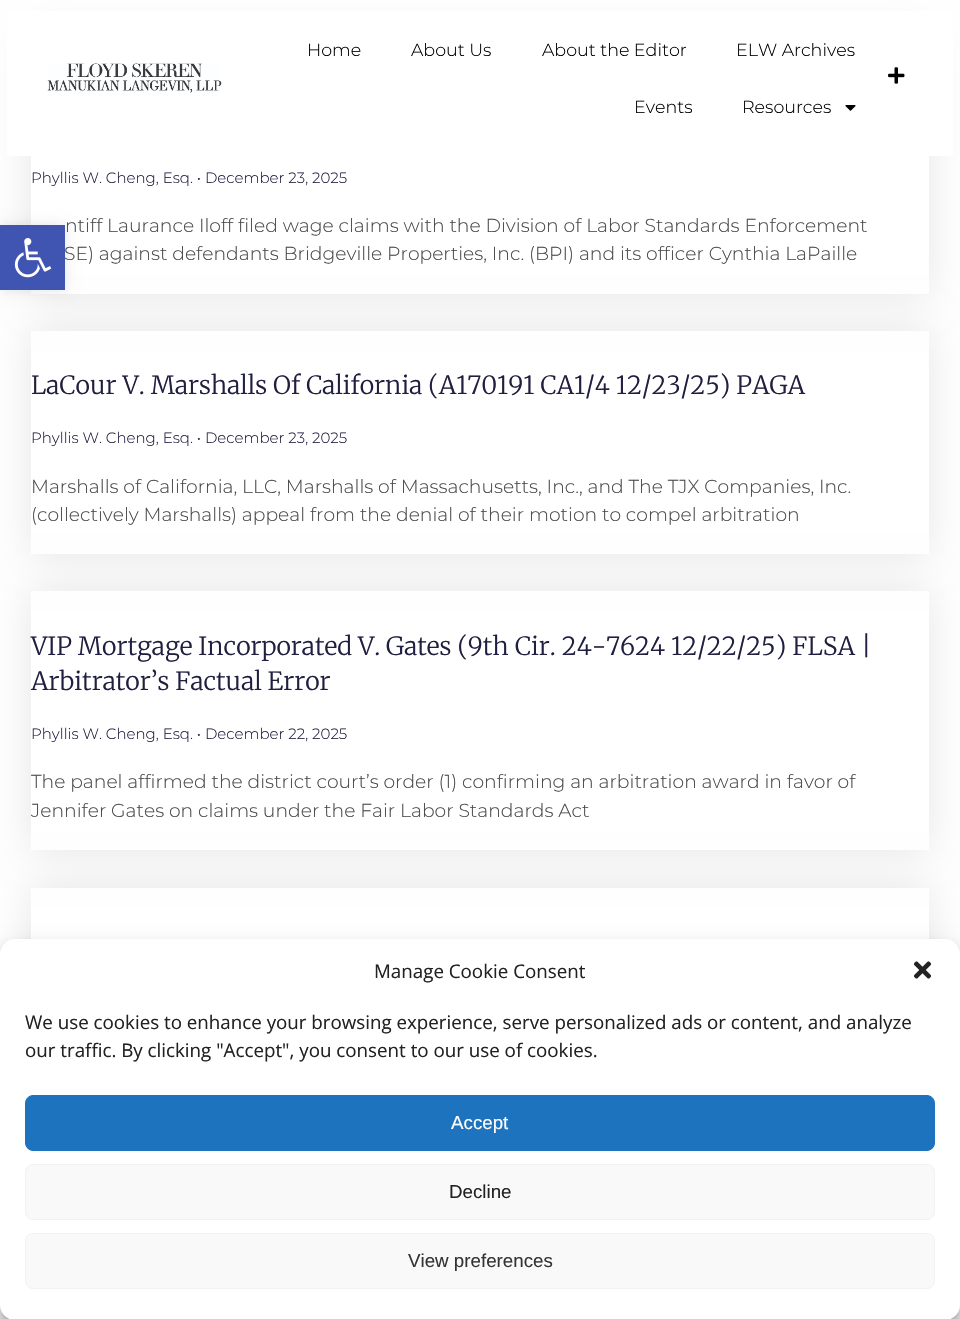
void draw(SkCanvas* canvas) {
    SkPaint paint;
    paint.setAntiAlias(true);
    auto face = [&](const char* family, int weight, float size, bool italic = false) {
        SkFontStyle style(weight, SkFontStyle::kNormal_Width,
            italic ? SkFontStyle::kItalic_Slant : SkFontStyle::kUpright_Slant);
        SkFont result(fontMgr->matchFamilyStyle(family, style), size);
        result.setSubpixel(true);
        return result;
    };
    auto write = [&](const char* s, float x, float y, const SkFont& font, SkColor color) {
        SkPaint ink(SkColor4f::FromColor(color));
        ink.setAntiAlias(true);
        canvas->drawString(s, x, y, font, ink);
    };
    auto block = [&](float x, float y, float w, float h, SkColor color) {
        SkPaint ink(SkColor4f::FromColor(color));
        ink.setAntiAlias(true);
        canvas->drawRect(SkRect::MakeXYWH(x, y, w, h), ink);
    };
    auto card = [&](float x, float y, float w, float h, float radius, SkColor color) {
        SkPaint ink(SkColor4f::FromColor(color));
        ink.setAntiAlias(true);
        canvas->drawRoundRect(SkRect::MakeXYWH(x, y, w, h), radius, radius, ink);
    };
    auto paste = [&](const char* path, float x, float y, float w, float h) {
        auto image = SkImages::DeferredFromEncodedData(SkData::MakeFromFileName(path));
        canvas->drawImageRect(image, SkRect::MakeXYWH(x, y, w, h), SkSamplingOptions());
    };
    canvas->clear(SK_ColorWHITE);
    canvas->save();
    canvas->clipPath(SkPathBuilder(SkPathFillType::kEvenOdd).moveTo(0, 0).lineTo(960, 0).lineTo(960, 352).lineTo(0, 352).close().moveTo(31, 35).lineTo(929, 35).lineTo(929, 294).lineTo(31, 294).close().detach(), true);
    paint.setColor(SkColorSetARGB(26, 0, 0, 0));
    paint.setMaskFilter(SkMaskFilter::MakeBlur(kNormal_SkBlurStyle, 19));
    canvas->drawRect(SkRect::MakeXYWH(31, 35, 898, 259), paint);
    paint.setMaskFilter(nullptr);
    canvas->restore();
    block(7, 11, 946, 145, SK_ColorWHITE);
    paste("pic1.png", 47, 63, 175, 30);
    auto kFont1 = face("Montserrat", 300, 17.5f);
    write("Home", 307, 56, kFont1, SK_ColorBLACK);
    write("About Us", 411, 56, kFont1, SK_ColorBLACK);
    write("About the Editor", 542, 56, kFont1, SK_ColorBLACK);
    write("ELW Archives", 736, 56, kFont1, SK_ColorBLACK);
    write("Events", 634, 113, kFont1, SK_ColorBLACK);
    write("Resources", 742, 113, kFont1, SK_ColorBLACK);
    paste("pic2.png", 845, 105, 11, 6);
    paste("pic3.png", 888, 67, 17, 17);
    auto kFont2 = face("Montserrat", 300, 15);
    write("Phyllis W. Cheng, Esq. • December 23, 2025", 31, 183, kFont2, SkColorSetRGB(33, 31, 64));
    auto kFont3 = face("Montserrat", 300, 18.75f);
    write("ntiff Laurance Iloff filed wage claims with the Division of Labor Standards Enforcement", 65, 232, kFont3, SkColorSetRGB(74, 74, 74));
    write("SE) against defendants Bridgeville Properties, Inc. (BPI) and its officer Cynthia LaPaille", 64, 260, kFont3, SkColorSetRGB(74, 74, 74));
    canvas->save();
    canvas->clipPath(SkPathBuilder(SkPathFillType::kEvenOdd).moveTo(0, 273).lineTo(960, 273).lineTo(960, 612).lineTo(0, 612).close().moveTo(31, 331).lineTo(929, 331).lineTo(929, 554).lineTo(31, 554).close().detach(), true);
    paint.setMaskFilter(SkMaskFilter::MakeBlur(kNormal_SkBlurStyle, 19));
    canvas->drawRect(SkRect::MakeXYWH(31, 331, 898, 223), paint);
    paint.setMaskFilter(nullptr);
    canvas->restore();
    auto kFont4 = face("Merriweather", 300, 25);
    write("LaCour V. Marshalls Of California (A170191 CA1/4 12/23/25) PAGA", 31, 394, kFont4, SkColorSetRGB(33, 31, 64));
    write("Phyllis W. Cheng, Esq. • December 23, 2025", 31, 443, kFont2, SkColorSetRGB(33, 31, 64));
    write("Marshalls of California, LLC, Marshalls of Massachusetts, Inc., and The TJX Companies, Inc.", 31, 493, kFont3, SkColorSetRGB(74, 74, 74));
    write("(collectively Marshalls) appeal from the denial of their motion to compel arbitration", 31, 521, kFont3, SkColorSetRGB(74, 74, 74));
    canvas->save();
    canvas->clipPath(SkPathBuilder(SkPathFillType::kEvenOdd).moveTo(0, 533).lineTo(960, 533).lineTo(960, 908).lineTo(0, 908).close().moveTo(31, 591).lineTo(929, 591).lineTo(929, 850).lineTo(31, 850).close().detach(), true);
    paint.setMaskFilter(SkMaskFilter::MakeBlur(kNormal_SkBlurStyle, 19));
    canvas->drawRect(SkRect::MakeXYWH(31, 591, 898, 259), paint);
    paint.setMaskFilter(nullptr);
    canvas->restore();
    write("VIP Mortgage Incorporated V. Gates (9th Cir. 24-7624 12/22/25) FLSA |", 31, 655, kFont4, SkColorSetRGB(33, 31, 64));
    write("Arbitrator’s Factual Error", 31, 690, kFont4, SkColorSetRGB(33, 31, 64));
    write("Phyllis W. Cheng, Esq. • December 22, 2025", 31, 739, kFont2, SkColorSetRGB(33, 31, 64));
    write("The panel affirmed the district court’s order (1) confirming an arbitration award in favor of", 31, 788, kFont3, SkColorSetRGB(74, 74, 74));
    write("Jennifer Gates on claims under the Fair Labor Standards Act", 31, 817, kFont3, SkColorSetRGB(74, 74, 74));
    canvas->save();
    canvas->clipPath(SkPathBuilder(SkPathFillType::kEvenOdd).moveTo(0, 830).lineTo(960, 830).lineTo(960, 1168).lineTo(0, 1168).close().moveTo(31, 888).lineTo(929, 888).lineTo(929, 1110).lineTo(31, 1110).close().detach(), true);
    paint.setMaskFilter(SkMaskFilter::MakeBlur(kNormal_SkBlurStyle, 19));
    canvas->drawRect(SkRect::MakeXYWH(31, 888, 898, 222), paint);
    paint.setMaskFilter(nullptr);
    canvas->restore();
    paint.setMaskFilter(SkMaskFilter::MakeBlur(kNormal_SkBlurStyle, 6));
    canvas->drawRect(SkRect::MakeXYWH(0, 225, 65, 65), paint);
    paint.setMaskFilter(nullptr);
    block(0, 225, 65, 65, SkColorSetRGB(64, 84, 178));
    paste("pic4.png", 14, 238, 38, 40);
    paint.setColor(SkColorSetARGB(59, 0, 0, 0));
    paint.setMaskFilter(SkMaskFilter::MakeBlur(kNormal_SkBlurStyle, 4));
    canvas->drawRoundRect(SkRect::MakeXYWH(0, 946, 960, 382), 15, 15, paint);
    paint.setMaskFilter(nullptr);
    paint.setColor(SkColorSetARGB(48, 0, 0, 0));
    paint.setMaskFilter(SkMaskFilter::MakeBlur(kNormal_SkBlurStyle, 12.5f));
    canvas->drawRoundRect(SkRect::MakeXYWH(0, 951, 960, 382), 15, 15, paint);
    paint.setMaskFilter(nullptr);
    card(0, 939, 960, 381, 15, SK_ColorWHITE);
    auto kFont5 = face("Open Sans", 400, 18.75f);
    write("Manage Cookie Consent", 374, 978, kFont5, SkColorSetRGB(34, 34, 34));
    paste("pic5.png", 913, 961, 19, 18);
    write("We use cookies to enhance your browsing experience, serve personalized ads or content, and analyze", 25, 1029, kFont5, SkColorSetRGB(34, 34, 34));
    write("our traffic. By clicking \"Accept\", you consent to our use of cookies.", 25, 1057, kFont5, SkColorSetRGB(34, 34, 34));
    paint.setColor(SkColorSetRGB(30, 115, 190));
    canvas->drawRoundRect(SkRect::MakeXYWH(25.5f, 1095.5f, 909, 55), 7.5f, 7.5f, paint);
    paint.setStyle(SkPaint::kStroke_Style);
    paint.setStrokeWidth(1);
    canvas->drawRoundRect(SkRect::MakeXYWH(25.5f, 1095.5f, 909, 55), 7.5f, 7.5f, paint);
    auto kFont6 = face("Liberation Sans", 400, 18.75f);
    write("Accept", 451, 1129, kFont6, SK_ColorWHITE);
    paint.setStyle(SkPaint::kFill_Style);
    paint.setColor(SkColorSetRGB(249, 249, 249));
    canvas->drawRoundRect(SkRect::MakeXYWH(25.5f, 1164.5f, 909, 55), 7.5f, 7.5f, paint);
    paint.setStyle(SkPaint::kStroke_Style);
    paint.setColor(SkColorSetRGB(242, 242, 242));
    canvas->drawRoundRect(SkRect::MakeXYWH(25.5f, 1164.5f, 909, 55), 7.5f, 7.5f, paint);
    write("Decline", 449, 1198, kFont6, SkColorSetRGB(34, 34, 34));
    paint.setStyle(SkPaint::kFill_Style);
    paint.setColor(SkColorSetRGB(249, 249, 249));
    canvas->drawRoundRect(SkRect::MakeXYWH(25.5f, 1233.5f, 909, 55), 7.5f, 7.5f, paint);
    paint.setStyle(SkPaint::kStroke_Style);
    paint.setColor(SkColorSetRGB(242, 242, 242));
    canvas->drawRoundRect(SkRect::MakeXYWH(25.5f, 1233.5f, 909, 55), 7.5f, 7.5f, paint);
    write("View preferences", 408, 1267, kFont6, SkColorSetRGB(51, 51, 51));
}
